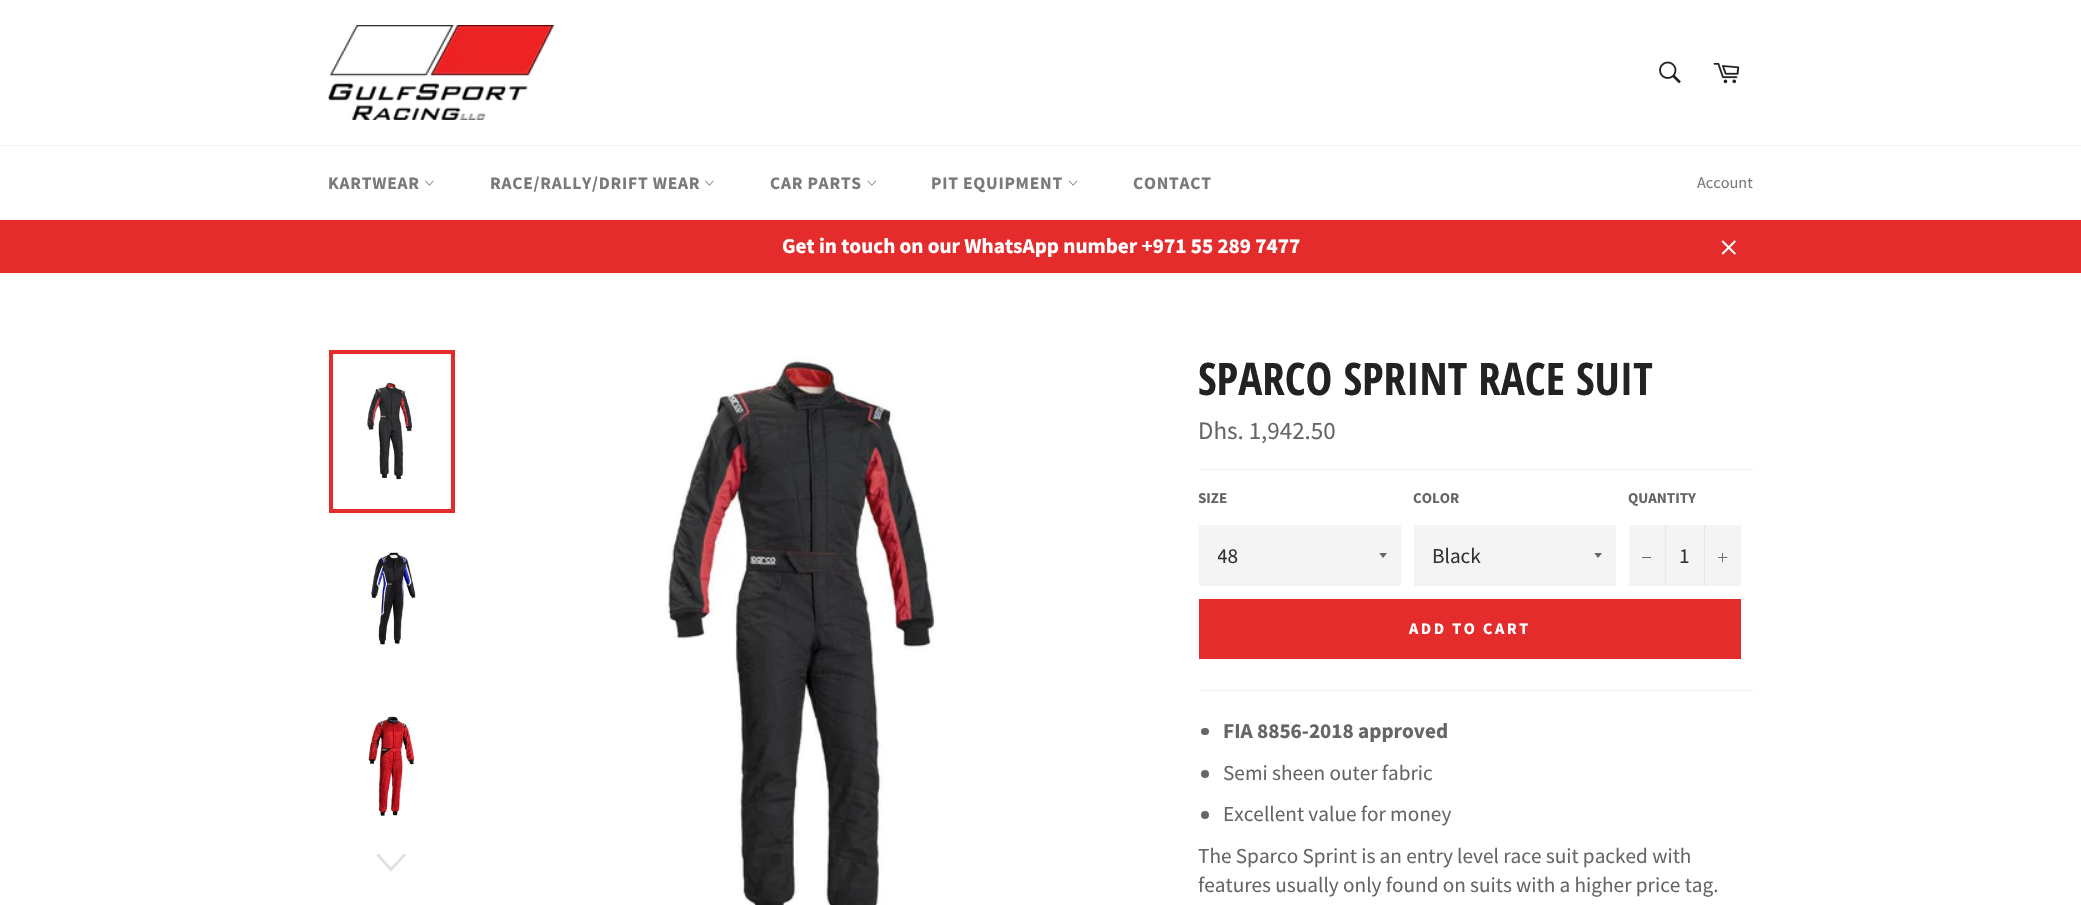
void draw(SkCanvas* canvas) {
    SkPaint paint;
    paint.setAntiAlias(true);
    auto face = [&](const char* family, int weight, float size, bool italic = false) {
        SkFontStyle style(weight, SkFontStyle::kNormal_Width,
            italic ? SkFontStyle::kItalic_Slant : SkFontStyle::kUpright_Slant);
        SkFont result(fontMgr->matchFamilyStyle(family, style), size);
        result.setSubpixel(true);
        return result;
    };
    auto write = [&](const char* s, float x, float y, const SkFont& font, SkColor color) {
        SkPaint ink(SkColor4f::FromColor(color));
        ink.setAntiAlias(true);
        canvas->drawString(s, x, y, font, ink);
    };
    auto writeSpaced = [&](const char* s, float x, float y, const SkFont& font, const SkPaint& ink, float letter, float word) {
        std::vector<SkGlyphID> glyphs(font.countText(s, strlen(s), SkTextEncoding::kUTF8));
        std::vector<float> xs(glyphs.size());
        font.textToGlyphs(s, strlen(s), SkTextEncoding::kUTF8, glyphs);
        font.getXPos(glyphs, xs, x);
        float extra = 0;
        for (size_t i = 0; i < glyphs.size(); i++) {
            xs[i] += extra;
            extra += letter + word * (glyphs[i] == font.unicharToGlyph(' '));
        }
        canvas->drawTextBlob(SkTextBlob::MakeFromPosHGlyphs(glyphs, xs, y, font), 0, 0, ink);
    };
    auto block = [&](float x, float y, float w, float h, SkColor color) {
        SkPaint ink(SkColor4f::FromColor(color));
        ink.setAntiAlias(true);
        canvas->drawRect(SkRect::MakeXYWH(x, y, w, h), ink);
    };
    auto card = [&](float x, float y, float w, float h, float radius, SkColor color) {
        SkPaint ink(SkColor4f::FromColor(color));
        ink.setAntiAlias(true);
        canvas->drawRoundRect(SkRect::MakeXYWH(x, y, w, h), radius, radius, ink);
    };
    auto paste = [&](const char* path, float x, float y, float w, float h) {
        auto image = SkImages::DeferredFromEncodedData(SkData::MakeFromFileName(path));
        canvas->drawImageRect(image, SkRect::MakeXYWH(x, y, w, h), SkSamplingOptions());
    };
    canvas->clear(SK_ColorWHITE);
    paste("pic1.png", 328, 25, 226, 95);
    paste("pic2.png", 1659, 61, 22, 23);
    paste("pic3.png", 1713, 63, 27, 21);
    block(0, 145, 2081, 1, SkColorSetRGB(242, 242, 242));
    auto kFont1 = face("Source Sans Pro", 700, 17.5f);
    paint.setColor(SkColorSetRGB(122, 122, 122));
    writeSpaced("KARTWEAR", 328, 189, kFont1, paint, 0.75f, 0);
    paste("pic4.png", 425, 180, 9, 6);
    writeSpaced("RACE/RALLY/DRIFT WEAR", 490, 189, kFont1, paint, 0.75f, 0);
    paste("pic4.png", 705, 180, 9, 6);
    writeSpaced("CAR PARTS", 770, 189, kFont1, paint, 0.75f, 0);
    paste("pic5.png", 867, 180, 10, 6);
    writeSpaced("PIT EQUIPMENT", 931, 189, kFont1, paint, 0.75f, 0);
    paste("pic6.png", 1068, 180, 10, 6);
    writeSpaced("CONTACT", 1133, 189, kFont1, paint, 0.75f, 0);
    auto kFont2 = face("Source Sans Pro", 400, 16.25f);
    write("Account", 1697, 188, kFont2, SkColorSetRGB(122, 122, 122));
    block(0, 220, 2081, 53, SkColorSetRGB(227, 44, 43));
    auto kFont3 = face("Source Sans Pro", 700, 21.25f);
    write("Get in touch on our WhatsApp number +971 55 289 7477", 782, 253, kFont3, SK_ColorWHITE);
    paste("pic7.png", 1721, 240, 15, 15);
    paste("pic8.png", 367, 382, 46, 98);
    paint.setStyle(SkPaint::kStroke_Style);
    paint.setStrokeWidth(4);
    paint.setColor(SkColorSetRGB(227, 44, 43));
    canvas->drawRect(SkRect::MakeXYWH(331, 352, 122, 159), paint);
    paste("pic9.png", 371, 552, 46, 93);
    paste("pic10.png", 367, 716, 50, 101);
    paint.setStyle(SkPaint::kFill_Style);
    paint.setColor(SkColorSetRGB(224, 224, 224));
    canvas->drawPath(SkPathBuilder().moveTo(404, 853.5f).lineTo(406, 855.5f).lineTo(391, 871.5f).lineTo(376.5f, 855.5f).lineTo(378.5f, 853.5f).lineTo(391, 867.5f).close().detach(), paint);
    paste("pic11.png", 665, 359, 271, 546);
    auto kFont4 = face("Open Sans Condensed", 700, 45);
    write("SPARCO SPRINT RACE SUIT", 1198, 395, kFont4, SkColorSetRGB(34, 34, 34));
    auto kFont5 = face("Source Sans Pro", 400, 25);
    write("Dhs. 1,942.50", 1198, 439, kFont5, SkColorSetRGB(102, 102, 102));
    block(1199, 469, 555, 1, SkColorSetRGB(240, 240, 240));
    auto kFont6 = face("Source Sans Pro", 700, 15);
    write("SIZE", 1198, 503, kFont6, SkColorSetRGB(102, 102, 102));
    block(1199, 525, 202, 61, SkColorSetRGB(244, 244, 244));
    canvas->save();
    canvas->clipRect(SkRect::MakeXYWH(1379, 553, 10, 6));
    paint.setColor(SkColorSetRGB(102, 102, 102));
    canvas->drawPath(SkPathBuilder().moveTo(1379, 552.5f).lineTo(1383, 558).lineTo(1387.5f, 552.5f).close().detach(), paint);
    canvas->restore();
    canvas->save();
    canvas->clipRect(SkRect::MakeXYWH(1218, 541, 148, 29));
    auto kFont7 = face("Source Sans Pro", 400, 21.25f);
    write("48", 1217, 563, kFont7, SkColorSetRGB(51, 51, 51));
    canvas->restore();
    write("COLOR", 1413, 503, kFont6, SkColorSetRGB(102, 102, 102));
    block(1414, 525, 202, 61, SkColorSetRGB(244, 244, 244));
    canvas->save();
    canvas->clipRect(SkRect::MakeXYWH(1594, 553, 10, 6));
    canvas->drawPath(SkPathBuilder().moveTo(1594, 552.5f).lineTo(1598, 558).lineTo(1602.5f, 552.5f).close().detach(), paint);
    canvas->restore();
    write("Black", 1432, 563, kFont7, SkColorSetRGB(51, 51, 51));
    write("QUANTITY", 1628, 503, kFont6, SkColorSetRGB(102, 102, 102));
    block(1629, 525, 112, 61, SkColorSetRGB(244, 244, 244));
    block(1665, 525, 1, 61, SkColorSetRGB(231, 231, 231));
    block(1642, 557, 9, 1, SkColorSetRGB(102, 102, 102));
    write("1", 1679, 563, kFont7, SkColorSetRGB(51, 51, 51));
    block(1704, 525, 1, 61, SkColorSetRGB(231, 231, 231));
    paste("pic12.png", 1718, 553, 10, 10);
    block(1199, 599, 542, 60, SkColorSetRGB(227, 44, 43));
    auto kFont8 = face("Source Sans Pro", 700, 16.25f);
    paint.setColor(SK_ColorWHITE);
    writeSpaced("ADD TO CART", 1409, 634, kFont8, paint, 2.5f, 0);
    block(1199, 690, 555, 1, SkColorSetRGB(240, 240, 240));
    card(1201, 728, 8, 7, 3.5f, SkColorSetRGB(102, 102, 102));
    write("FIA 8856-2018 approved", 1223, 738, kFont3, SkColorSetRGB(102, 102, 102));
    paint.setColor(SkColorSetRGB(102, 102, 102));
    canvas->drawCircle(1205, 774, 4, paint);
    write("Semi sheen outer fabric", 1223, 780, kFont7, SkColorSetRGB(102, 102, 102));
    canvas->drawCircle(1205, 815, 4, paint);
    write("Excellent value for money", 1223, 821, kFont7, SkColorSetRGB(102, 102, 102));
    write("The Sparco Sprint is an entry level race suit packed with", 1198, 863, kFont7, SkColorSetRGB(102, 102, 102));
    write("features usually only found on suits with a higher price tag.", 1198, 892, kFont7, SkColorSetRGB(102, 102, 102));
}
